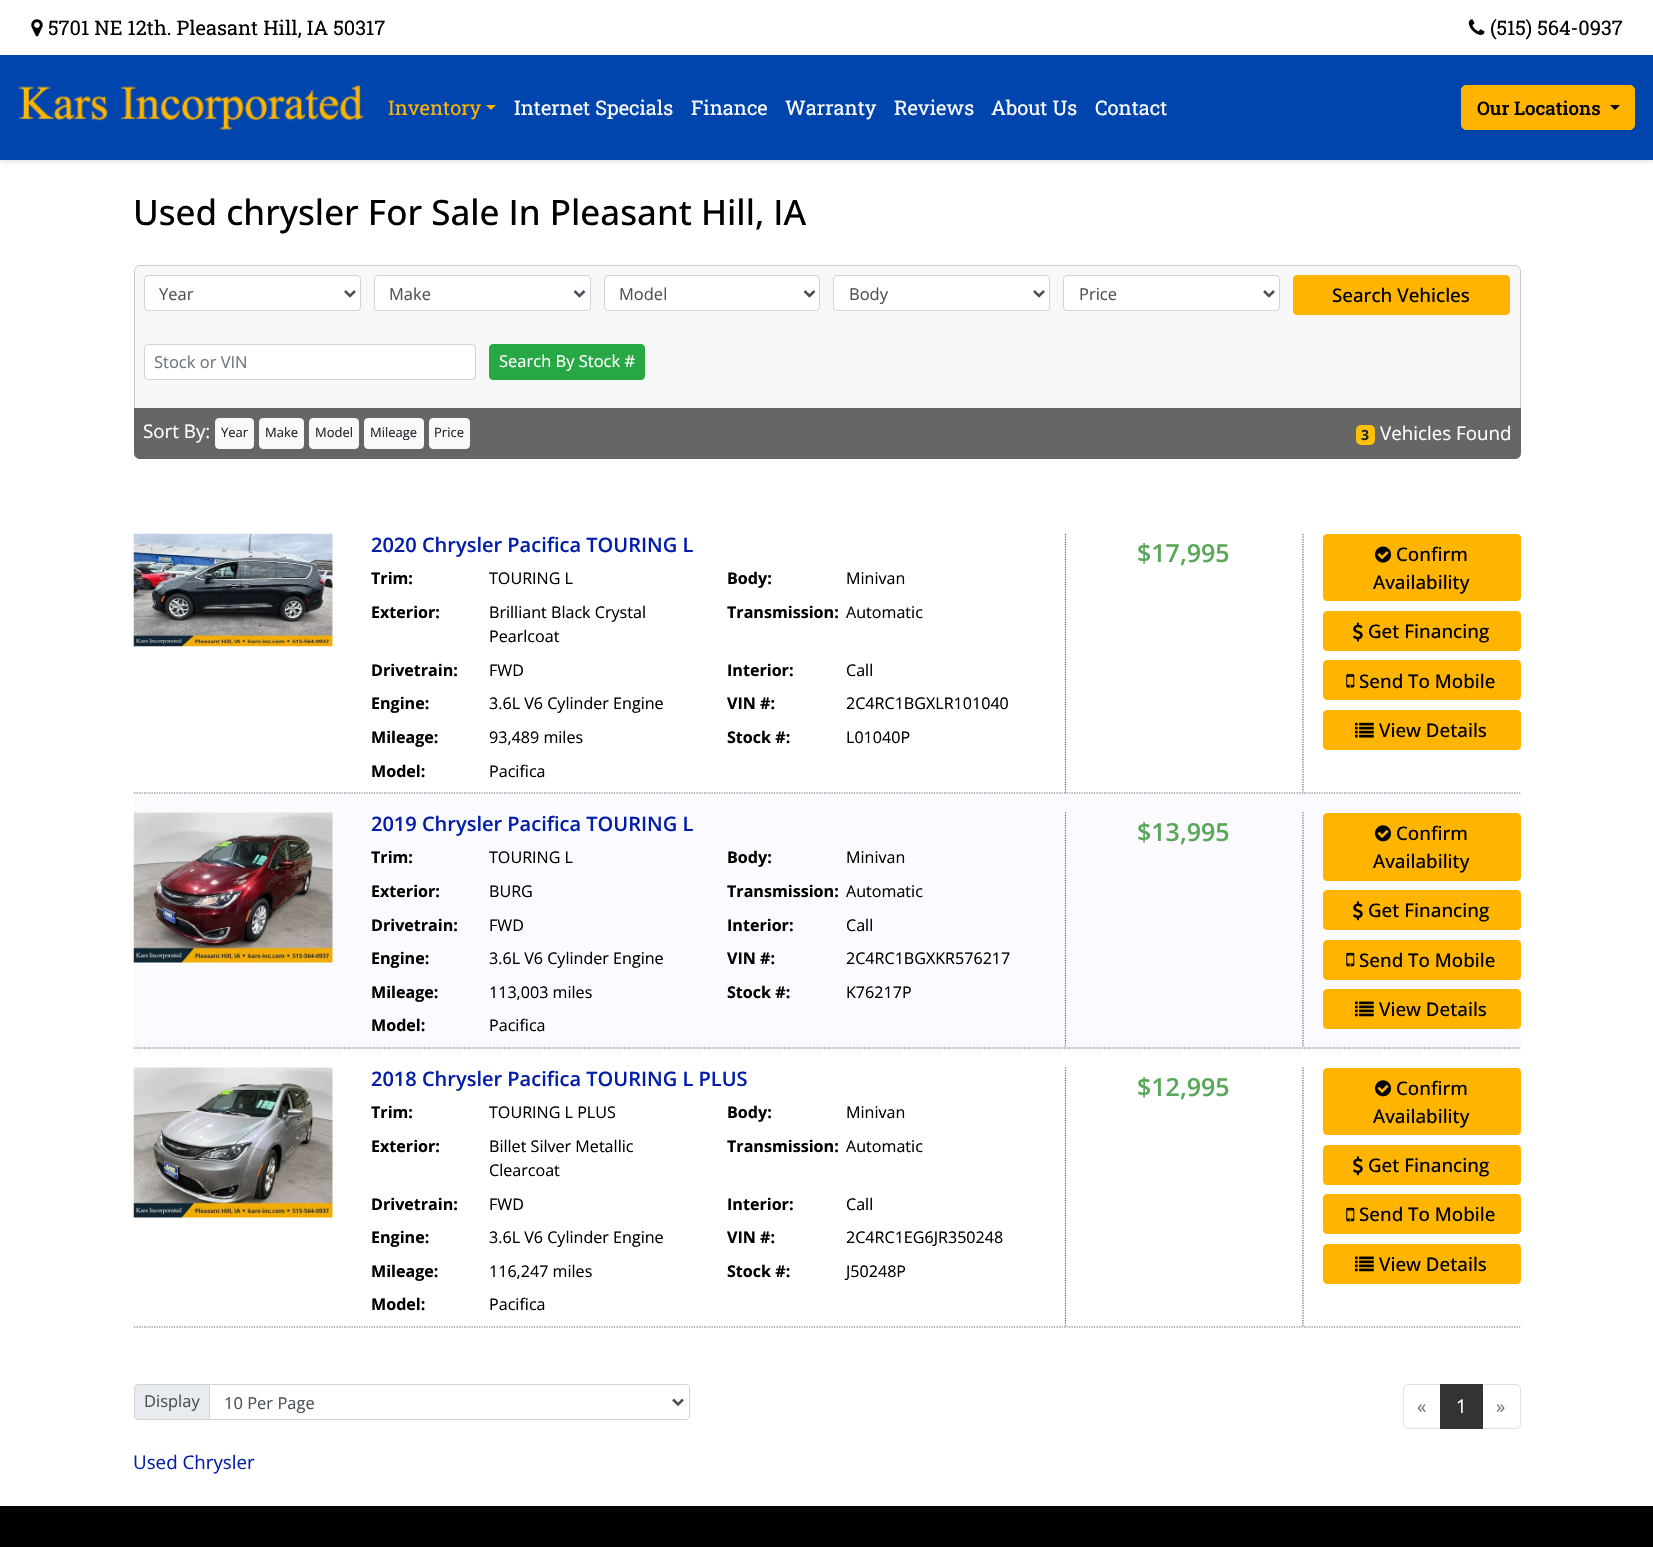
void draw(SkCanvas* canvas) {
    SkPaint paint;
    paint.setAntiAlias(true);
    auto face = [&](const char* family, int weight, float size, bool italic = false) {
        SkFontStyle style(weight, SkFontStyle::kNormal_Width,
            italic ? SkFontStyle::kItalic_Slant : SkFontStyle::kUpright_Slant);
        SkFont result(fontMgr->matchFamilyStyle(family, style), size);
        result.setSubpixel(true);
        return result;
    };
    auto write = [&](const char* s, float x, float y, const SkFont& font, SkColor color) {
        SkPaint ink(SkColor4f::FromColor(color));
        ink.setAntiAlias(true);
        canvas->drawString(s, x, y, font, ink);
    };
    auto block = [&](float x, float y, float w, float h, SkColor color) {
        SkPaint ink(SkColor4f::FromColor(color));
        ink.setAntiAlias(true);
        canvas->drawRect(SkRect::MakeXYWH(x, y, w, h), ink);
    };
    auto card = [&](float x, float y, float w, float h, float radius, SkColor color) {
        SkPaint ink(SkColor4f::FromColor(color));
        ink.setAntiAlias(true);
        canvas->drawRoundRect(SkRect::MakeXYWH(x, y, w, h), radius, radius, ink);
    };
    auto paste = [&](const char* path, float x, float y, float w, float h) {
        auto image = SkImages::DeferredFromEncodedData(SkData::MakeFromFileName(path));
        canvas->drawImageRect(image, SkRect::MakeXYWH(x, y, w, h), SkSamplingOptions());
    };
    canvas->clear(SK_ColorWHITE);
    canvas->save();
    canvas->clipRect(SkRect::MakeXYWH(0, 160, 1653, 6));
    paint.setColor(SkColorSetRGB(204, 204, 204));
    paint.setMaskFilter(SkMaskFilter::MakeBlur(kNormal_SkBlurStyle, 3));
    canvas->drawRect(SkRect::MakeXYWH(0, 0, 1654, 160), paint);
    paint.setMaskFilter(nullptr);
    canvas->restore();
    paste("pic1.png", 31, 19, 12, 18);
    auto kFont1 = face("Roboto Slab", 400, 20);
    write("5701 NE 12th. Pleasant Hill, IA 50317", 48, 35, kFont1, SK_ColorBLACK);
    paste("pic2.png", 1468, 19, 17, 16);
    write("(515) 564-0937", 1490, 35, kFont1, SK_ColorBLACK);
    block(0, 55, 1653, 105, SkColorSetRGB(0, 69, 173));
    paste("pic3.png", 18, 85, 346, 45);
    write("Inventory", 388, 115, kFont1, SkColorSetRGB(255, 180, 0));
    paint.setColor(SkColorSetRGB(255, 180, 0));
    canvas->drawPath(SkPathBuilder().moveTo(486, 105).lineTo(496, 105).lineTo(491, 110).close().detach(), paint);
    write("Internet Specials", 514, 115, kFont1, SK_ColorWHITE);
    write("Finance", 691, 115, kFont1, SK_ColorWHITE);
    write("Warranty", 785, 115, kFont1, SK_ColorWHITE);
    write("Reviews", 894, 115, kFont1, SK_ColorWHITE);
    write("About Us", 991, 115, kFont1, SK_ColorWHITE);
    write("Contact", 1095, 115, kFont1, SK_ColorWHITE);
    canvas->drawRoundRect(SkRect::MakeXYWH(1461.5f, 85.5f, 173, 44), 4.5f, 4.5f, paint);
    paint.setStyle(SkPaint::kStroke_Style);
    paint.setStrokeWidth(1);
    canvas->drawRoundRect(SkRect::MakeXYWH(1461.5f, 85.5f, 173, 44), 4.5f, 4.5f, paint);
    auto kFont2 = face("Roboto Slab", 500, 18.75f);
    write("Our Locations", 1477, 115, kFont2, SK_ColorBLACK);
    paint.setStyle(SkPaint::kFill_Style);
    paint.setColor(SK_ColorBLACK);
    canvas->drawPath(SkPathBuilder().moveTo(1610, 105).lineTo(1620, 105).lineTo(1615, 110).close().detach(), paint);
    auto kFont3 = face("Open Sans", 500, 35);
    write("Used chrysler For Sale In Pleasant Hill, IA", 133, 225, kFont3, SK_ColorBLACK);
    paint.setColor(SkColorSetRGB(248, 248, 248));
    canvas->drawPath(SkPathBuilder().moveTo(140, 265).lineTo(1515, 265).cubicTo(1518.5f, 265, 1521, 267.5f, 1521, 271).lineTo(1521, 408).lineTo(134, 408).lineTo(134, 271).cubicTo(134, 267.5f, 136.5f, 265, 140, 265).close().detach(), paint);
    paint.setColor(SkColorSetRGB(204, 204, 204));
    canvas->drawPath(SkPathBuilder(SkPathFillType::kEvenOdd).moveTo(140, 265).lineTo(1515, 265).cubicTo(1518, 265, 1521, 268, 1521, 271).lineTo(1521, 408).lineTo(134, 408).lineTo(134, 271).cubicTo(134, 268, 137, 265, 140, 265).close().moveTo(140, 266).lineTo(1515, 266).cubicTo(1518, 266, 1520, 268, 1520, 271).lineTo(1520, 408).lineTo(135, 408).lineTo(135, 271).cubicTo(135, 268, 137, 266, 140, 266).close().detach(), paint);
    card(145, 276, 215, 34, 2.5f, SK_ColorWHITE);
    paint.setStyle(SkPaint::kStroke_Style);
    paint.setColor(SkColorSetRGB(206, 212, 218));
    canvas->drawRoundRect(SkRect::MakeXYWH(144.5f, 275.5f, 216, 35), 3.5f, 3.5f, paint);
    paint.setStrokeWidth(2.5f);
    paint.setColor(SkColorSetRGB(73, 80, 87));
    canvas->drawPath(SkPathBuilder().moveTo(345, 291).lineTo(350, 296).lineTo(355, 291).detach(), paint);
    auto kFont4 = face("Open Sans", 400, 16.5f);
    write("Year", 159, 300, kFont4, SkColorSetRGB(73, 80, 87));
    card(375, 276, 215, 34, 2.5f, SK_ColorWHITE);
    paint.setStrokeWidth(1);
    paint.setColor(SkColorSetRGB(206, 212, 218));
    canvas->drawRoundRect(SkRect::MakeXYWH(374.5f, 275.5f, 216, 35), 3.5f, 3.5f, paint);
    paint.setStrokeWidth(2.5f);
    paint.setColor(SkColorSetRGB(73, 80, 87));
    canvas->drawPath(SkPathBuilder().moveTo(574.5f, 291).lineTo(579.5f, 296).lineTo(584.5f, 291).detach(), paint);
    write("Make", 389, 300, kFont4, SkColorSetRGB(73, 80, 87));
    card(605, 276, 214, 34, 2.5f, SK_ColorWHITE);
    paint.setStrokeWidth(1);
    paint.setColor(SkColorSetRGB(206, 212, 218));
    canvas->drawRoundRect(SkRect::MakeXYWH(604.5f, 275.5f, 215, 35), 3.5f, 3.5f, paint);
    paint.setStrokeWidth(2.5f);
    paint.setColor(SkColorSetRGB(73, 80, 87));
    canvas->drawPath(SkPathBuilder().moveTo(804.5f, 291).lineTo(809.5f, 296).lineTo(814.5f, 291).detach(), paint);
    write("Model", 619, 300, kFont4, SkColorSetRGB(73, 80, 87));
    card(834, 276, 215, 34, 2.5f, SK_ColorWHITE);
    paint.setStrokeWidth(1);
    paint.setColor(SkColorSetRGB(206, 212, 218));
    canvas->drawRoundRect(SkRect::MakeXYWH(833.5f, 275.5f, 216, 35), 3.5f, 3.5f, paint);
    paint.setStrokeWidth(2.5f);
    paint.setColor(SkColorSetRGB(73, 80, 87));
    canvas->drawPath(SkPathBuilder().moveTo(1034, 291).lineTo(1039, 296).lineTo(1044, 291).detach(), paint);
    write("Body", 849, 300, kFont4, SkColorSetRGB(73, 80, 87));
    card(1064, 276, 215, 34, 2.5f, SK_ColorWHITE);
    paint.setStrokeWidth(1);
    paint.setColor(SkColorSetRGB(206, 212, 218));
    canvas->drawRoundRect(SkRect::MakeXYWH(1063.5f, 275.5f, 216, 35), 3.5f, 3.5f, paint);
    paint.setStrokeWidth(2.5f);
    paint.setColor(SkColorSetRGB(73, 80, 87));
    canvas->drawPath(SkPathBuilder().moveTo(1264, 291).lineTo(1269, 296).lineTo(1274, 291).detach(), paint);
    write("Price", 1079, 300, kFont4, SkColorSetRGB(73, 80, 87));
    paint.setStyle(SkPaint::kFill_Style);
    paint.setColor(SkColorSetRGB(255, 180, 0));
    canvas->drawRoundRect(SkRect::MakeXYWH(1293.5f, 275.5f, 216, 39), 3.5f, 3.5f, paint);
    paint.setStyle(SkPaint::kStroke_Style);
    paint.setStrokeWidth(1);
    canvas->drawRoundRect(SkRect::MakeXYWH(1293.5f, 275.5f, 216, 39), 3.5f, 3.5f, paint);
    auto kFont5 = face("Open Sans", 500, 18.75f);
    write("Search Vehicles", 1332, 302, kFont5, SK_ColorBLACK);
    card(145, 345, 330, 34, 2.5f, SK_ColorWHITE);
    paint.setColor(SkColorSetRGB(206, 212, 218));
    canvas->drawRoundRect(SkRect::MakeXYWH(144.5f, 344.5f, 331, 35), 3.5f, 3.5f, paint);
    write("Stock or VIN", 154, 368, kFont4, SkColorSetRGB(108, 117, 125));
    paint.setStyle(SkPaint::kFill_Style);
    paint.setColor(SkColorSetRGB(40, 167, 69));
    canvas->drawRoundRect(SkRect::MakeXYWH(489.5f, 344.5f, 155, 35), 3.5f, 3.5f, paint);
    paint.setStyle(SkPaint::kStroke_Style);
    canvas->drawRoundRect(SkRect::MakeXYWH(489.5f, 344.5f, 155, 35), 3.5f, 3.5f, paint);
    write("Search By Stock #", 499, 367, kFont4, SK_ColorWHITE);
    paint.setStyle(SkPaint::kFill_Style);
    paint.setColor(SkColorSetRGB(102, 102, 102));
    canvas->drawPath(SkPathBuilder().moveTo(134, 408).lineTo(1521, 408).lineTo(1521, 453).cubicTo(1521, 456.5f, 1518.5f, 459, 1515, 459).lineTo(140, 459).cubicTo(136.5f, 459, 134, 456.5f, 134, 453).close().detach(), paint);
    auto kFont6 = face("Open Sans", 400, 18.75f);
    write("Sort By:", 143, 438, kFont6, SK_ColorWHITE);
    paint.setColor(SkColorSetRGB(248, 249, 250));
    canvas->drawRoundRect(SkRect::MakeXYWH(215.5f, 418.5f, 38, 30), 3.5f, 3.5f, paint);
    paint.setStyle(SkPaint::kStroke_Style);
    canvas->drawRoundRect(SkRect::MakeXYWH(215.5f, 418.5f, 38, 30), 3.5f, 3.5f, paint);
    auto kFont7 = face("Open Sans", 400, 13);
    write("Year", 221, 437, kFont7, SkColorSetRGB(33, 37, 41));
    paint.setStyle(SkPaint::kFill_Style);
    canvas->drawRoundRect(SkRect::MakeXYWH(259.5f, 418.5f, 44, 30), 3.5f, 3.5f, paint);
    paint.setStyle(SkPaint::kStroke_Style);
    canvas->drawRoundRect(SkRect::MakeXYWH(259.5f, 418.5f, 44, 30), 3.5f, 3.5f, paint);
    write("Make", 265, 437, kFont7, SkColorSetRGB(33, 37, 41));
    paint.setStyle(SkPaint::kFill_Style);
    canvas->drawRoundRect(SkRect::MakeXYWH(309.5f, 418.5f, 49, 30), 3.5f, 3.5f, paint);
    paint.setStyle(SkPaint::kStroke_Style);
    canvas->drawRoundRect(SkRect::MakeXYWH(309.5f, 418.5f, 49, 30), 3.5f, 3.5f, paint);
    write("Model", 315, 437, kFont7, SkColorSetRGB(33, 37, 41));
    paint.setStyle(SkPaint::kFill_Style);
    canvas->drawRoundRect(SkRect::MakeXYWH(364.5f, 418.5f, 59, 30), 3.5f, 3.5f, paint);
    paint.setStyle(SkPaint::kStroke_Style);
    canvas->drawRoundRect(SkRect::MakeXYWH(364.5f, 418.5f, 59, 30), 3.5f, 3.5f, paint);
    write("Mileage", 370, 437, kFont7, SkColorSetRGB(33, 37, 41));
    paint.setStyle(SkPaint::kFill_Style);
    canvas->drawRoundRect(SkRect::MakeXYWH(429.5f, 418.5f, 40, 30), 3.5f, 3.5f, paint);
    paint.setStyle(SkPaint::kStroke_Style);
    canvas->drawRoundRect(SkRect::MakeXYWH(429.5f, 418.5f, 40, 30), 3.5f, 3.5f, paint);
    write("Price", 434, 437, kFont7, SkColorSetRGB(33, 37, 41));
    card(1356, 425, 19, 20, 5, SkColorSetRGB(255, 193, 7));
    auto kFont8 = face("Open Sans", 700, 14);
    write("3", 1361, 440, kFont8, SkColorSetRGB(33, 37, 41));
    write("Vehicles Found", 1380, 440, kFont6, SK_ColorWHITE);
    paint.setStrokeWidth(1.2f);
    paint.setColor(SkColorSetRGB(102, 102, 102));
    paint.setPathEffect(SkDashPathEffect::Make({{1.25f, 1.25f}}, 0));
    canvas->drawPath(SkPathBuilder().moveTo(134, 793).lineTo(1521, 793).detach(), paint);
    paint.setPathEffect(nullptr);
    paste("pic4.png", 133, 533, 200, 114);
    auto kFont9 = face("Open Sans", 600, 20);
    write("2020 Chrysler Pacifica TOURING L", 371, 552, kFont9, SkColorSetRGB(3, 30, 170));
    auto kFont10 = face("Open Sans", 700, 16.1f);
    write("Trim:", 371, 584, kFont10, SK_ColorBLACK);
    auto kFont11 = face("Open Sans", 400, 16.1f);
    write("TOURING L", 489, 584, kFont11, SK_ColorBLACK);
    write("Body:", 727, 584, kFont10, SK_ColorBLACK);
    write("Minivan", 846, 584, kFont11, SK_ColorBLACK);
    write("Exterior:", 371, 618, kFont10, SK_ColorBLACK);
    write("Brilliant Black Crystal", 489, 618, kFont11, SK_ColorBLACK);
    write("Pearlcoat", 489, 642, kFont11, SK_ColorBLACK);
    write("Transmission:", 727, 618, kFont10, SK_ColorBLACK);
    write("Automatic", 846, 618, kFont11, SK_ColorBLACK);
    write("Drivetrain:", 371, 676, kFont10, SK_ColorBLACK);
    write("FWD", 489, 676, kFont11, SK_ColorBLACK);
    write("Interior:", 727, 676, kFont10, SK_ColorBLACK);
    write("Call", 846, 676, kFont11, SK_ColorBLACK);
    write("Engine:", 371, 709, kFont10, SK_ColorBLACK);
    write("3.6L V6 Cylinder Engine", 489, 709, kFont11, SK_ColorBLACK);
    write("VIN #:", 727, 709, kFont10, SK_ColorBLACK);
    write("2C4RC1BGXLR101040", 846, 709, kFont11, SK_ColorBLACK);
    write("Mileage:", 371, 743, kFont10, SK_ColorBLACK);
    write("93,489 miles", 489, 743, kFont11, SK_ColorBLACK);
    write("Stock #:", 727, 743, kFont10, SK_ColorBLACK);
    write("L01040P", 846, 743, kFont11, SK_ColorBLACK);
    write("Model:", 371, 777, kFont10, SK_ColorBLACK);
    write("Pacifica", 489, 777, kFont11, SK_ColorBLACK);
    paint.setPathEffect(SkDashPathEffect::Make({{1.25f, 1.25f}}, 0));
    canvas->drawPath(SkPathBuilder().moveTo(1303, 534).lineTo(1303, 792.5f).detach(), paint);
    paint.setPathEffect(nullptr);
    paint.setPathEffect(SkDashPathEffect::Make({{1.25f, 1.25f}}, 0));
    canvas->drawPath(SkPathBuilder().moveTo(1065.5f, 534).lineTo(1065.5f, 792.5f).detach(), paint);
    paint.setPathEffect(nullptr);
    auto kFont12 = face("Open Sans", 600, 25);
    write("$17,995", 1137, 562, kFont12, SkColorSetRGB(89, 167, 89));
    paint.setStyle(SkPaint::kFill_Style);
    paint.setColor(SkColorSetRGB(255, 180, 0));
    canvas->drawRoundRect(SkRect::MakeXYWH(1323.5f, 534.5f, 197, 66), 3.5f, 3.5f, paint);
    paint.setStyle(SkPaint::kStroke_Style);
    paint.setStrokeWidth(1);
    canvas->drawRoundRect(SkRect::MakeXYWH(1323.5f, 534.5f, 197, 66), 3.5f, 3.5f, paint);
    paste("pic5.png", 1375, 546, 17, 17);
    write("Confirm", 1396, 561, kFont5, SK_ColorBLACK);
    write("Availability", 1373, 589, kFont5, SK_ColorBLACK);
    paint.setStyle(SkPaint::kFill_Style);
    canvas->drawRoundRect(SkRect::MakeXYWH(1323.5f, 611.5f, 197, 39), 3.5f, 3.5f, paint);
    paint.setStyle(SkPaint::kStroke_Style);
    canvas->drawRoundRect(SkRect::MakeXYWH(1323.5f, 611.5f, 197, 39), 3.5f, 3.5f, paint);
    paste("pic6.png", 1353, 622, 10, 20);
    write("Get Financing", 1368, 638, kFont5, SK_ColorBLACK);
    paint.setStyle(SkPaint::kFill_Style);
    canvas->drawRoundRect(SkRect::MakeXYWH(1323.5f, 660.5f, 197, 39), 3.5f, 3.5f, paint);
    paint.setStyle(SkPaint::kStroke_Style);
    canvas->drawRoundRect(SkRect::MakeXYWH(1323.5f, 660.5f, 197, 39), 3.5f, 3.5f, paint);
    paste("pic7.png", 1346, 674, 9, 14);
    write("Send To Mobile", 1359, 688, kFont5, SK_ColorBLACK);
    paint.setStyle(SkPaint::kFill_Style);
    canvas->drawRoundRect(SkRect::MakeXYWH(1323.5f, 710.5f, 197, 39), 3.5f, 3.5f, paint);
    paint.setStyle(SkPaint::kStroke_Style);
    canvas->drawRoundRect(SkRect::MakeXYWH(1323.5f, 710.5f, 197, 39), 3.5f, 3.5f, paint);
    paste("pic8.png", 1355, 722, 19, 16);
    write("View Details", 1379, 737, kFont5, SK_ColorBLACK);
    block(134, 794, 1387, 255, SkColorSetRGB(250, 250, 255));
    paint.setStrokeWidth(1.2f);
    paint.setColor(SkColorSetRGB(102, 102, 102));
    paint.setPathEffect(SkDashPathEffect::Make({{1.25f, 1.25f}}, 0));
    canvas->drawPath(SkPathBuilder().moveTo(134, 1048).lineTo(1521, 1048).detach(), paint);
    paint.setPathEffect(nullptr);
    paste("pic9.png", 133, 812, 200, 151);
    write("2019 Chrysler Pacifica TOURING L", 371, 831, kFont9, SkColorSetRGB(3, 30, 170));
    write("Trim:", 371, 863, kFont10, SK_ColorBLACK);
    write("TOURING L", 489, 863, kFont11, SK_ColorBLACK);
    write("Body:", 727, 863, kFont10, SK_ColorBLACK);
    write("Minivan", 846, 863, kFont11, SK_ColorBLACK);
    write("Exterior:", 371, 897, kFont10, SK_ColorBLACK);
    write("BURG", 489, 897, kFont11, SK_ColorBLACK);
    write("Transmission:", 727, 897, kFont10, SK_ColorBLACK);
    write("Automatic", 846, 897, kFont11, SK_ColorBLACK);
    write("Drivetrain:", 371, 931, kFont10, SK_ColorBLACK);
    write("FWD", 489, 931, kFont11, SK_ColorBLACK);
    write("Interior:", 727, 931, kFont10, SK_ColorBLACK);
    write("Call", 846, 931, kFont11, SK_ColorBLACK);
    write("Engine:", 371, 964, kFont10, SK_ColorBLACK);
    write("3.6L V6 Cylinder Engine", 489, 964, kFont11, SK_ColorBLACK);
    write("VIN #:", 727, 964, kFont10, SK_ColorBLACK);
    write("2C4RC1BGXKR576217", 846, 964, kFont11, SK_ColorBLACK);
    write("Mileage:", 371, 998, kFont10, SK_ColorBLACK);
    write("113,003 miles", 489, 998, kFont11, SK_ColorBLACK);
    write("Stock #:", 727, 998, kFont10, SK_ColorBLACK);
    write("K76217P", 846, 998, kFont11, SK_ColorBLACK);
    write("Model:", 371, 1031, kFont10, SK_ColorBLACK);
    write("Pacifica", 489, 1031, kFont11, SK_ColorBLACK);
    paint.setPathEffect(SkDashPathEffect::Make({{1.25f, 1.25f}}, 0));
    canvas->drawPath(SkPathBuilder().moveTo(1303, 812.5f).lineTo(1303, 1047.5f).detach(), paint);
    paint.setPathEffect(nullptr);
    paint.setPathEffect(SkDashPathEffect::Make({{1.25f, 1.25f}}, 0));
    canvas->drawPath(SkPathBuilder().moveTo(1065.5f, 812.5f).lineTo(1065.5f, 1047.5f).detach(), paint);
    paint.setPathEffect(nullptr);
    write("$13,995", 1137, 841, kFont12, SkColorSetRGB(89, 167, 89));
    paint.setStyle(SkPaint::kFill_Style);
    paint.setColor(SkColorSetRGB(255, 180, 0));
    canvas->drawRoundRect(SkRect::MakeXYWH(1323.5f, 813.5f, 197, 67), 3.5f, 3.5f, paint);
    paint.setStyle(SkPaint::kStroke_Style);
    paint.setStrokeWidth(1);
    canvas->drawRoundRect(SkRect::MakeXYWH(1323.5f, 813.5f, 197, 67), 3.5f, 3.5f, paint);
    paste("pic10.png", 1375, 825, 17, 17);
    write("Confirm", 1396, 840, kFont5, SK_ColorBLACK);
    write("Availability", 1373, 868, kFont5, SK_ColorBLACK);
    paint.setStyle(SkPaint::kFill_Style);
    canvas->drawRoundRect(SkRect::MakeXYWH(1323.5f, 890.5f, 197, 39), 3.5f, 3.5f, paint);
    paint.setStyle(SkPaint::kStroke_Style);
    canvas->drawRoundRect(SkRect::MakeXYWH(1323.5f, 890.5f, 197, 39), 3.5f, 3.5f, paint);
    paste("pic11.png", 1353, 901, 10, 20);
    write("Get Financing", 1368, 917, kFont5, SK_ColorBLACK);
    paint.setStyle(SkPaint::kFill_Style);
    canvas->drawRoundRect(SkRect::MakeXYWH(1323.5f, 940.5f, 197, 39), 3.5f, 3.5f, paint);
    paint.setStyle(SkPaint::kStroke_Style);
    canvas->drawRoundRect(SkRect::MakeXYWH(1323.5f, 940.5f, 197, 39), 3.5f, 3.5f, paint);
    paste("pic12.png", 1346, 952, 9, 15);
    write("Send To Mobile", 1359, 967, kFont5, SK_ColorBLACK);
    paint.setStyle(SkPaint::kFill_Style);
    canvas->drawRoundRect(SkRect::MakeXYWH(1323.5f, 989.5f, 197, 39), 3.5f, 3.5f, paint);
    paint.setStyle(SkPaint::kStroke_Style);
    canvas->drawRoundRect(SkRect::MakeXYWH(1323.5f, 989.5f, 197, 39), 3.5f, 3.5f, paint);
    paste("pic13.png", 1355, 1001, 19, 16);
    write("View Details", 1379, 1016, kFont5, SK_ColorBLACK);
    paint.setStrokeWidth(1.2f);
    paint.setColor(SkColorSetRGB(102, 102, 102));
    paint.setPathEffect(SkDashPathEffect::Make({{1.25f, 1.25f}}, 0));
    canvas->drawPath(SkPathBuilder().moveTo(134, 1327).lineTo(1521, 1327).detach(), paint);
    paint.setPathEffect(nullptr);
    paste("pic14.png", 133, 1067, 200, 151);
    write("2018 Chrysler Pacifica TOURING L PLUS", 371, 1086, kFont9, SkColorSetRGB(3, 30, 170));
    write("Trim:", 371, 1118, kFont10, SK_ColorBLACK);
    write("TOURING L PLUS", 489, 1118, kFont11, SK_ColorBLACK);
    write("Body:", 727, 1118, kFont10, SK_ColorBLACK);
    write("Minivan", 846, 1118, kFont11, SK_ColorBLACK);
    write("Exterior:", 371, 1152, kFont10, SK_ColorBLACK);
    write("Billet Silver Metallic", 489, 1152, kFont11, SK_ColorBLACK);
    write("Clearcoat", 489, 1176, kFont11, SK_ColorBLACK);
    write("Transmission:", 727, 1152, kFont10, SK_ColorBLACK);
    write("Automatic", 846, 1152, kFont11, SK_ColorBLACK);
    write("Drivetrain:", 371, 1210, kFont10, SK_ColorBLACK);
    write("FWD", 489, 1210, kFont11, SK_ColorBLACK);
    write("Interior:", 727, 1210, kFont10, SK_ColorBLACK);
    write("Call", 846, 1210, kFont11, SK_ColorBLACK);
    write("Engine:", 371, 1243, kFont10, SK_ColorBLACK);
    write("3.6L V6 Cylinder Engine", 489, 1243, kFont11, SK_ColorBLACK);
    write("VIN #:", 727, 1243, kFont10, SK_ColorBLACK);
    write("2C4RC1EG6JR350248", 846, 1243, kFont11, SK_ColorBLACK);
    write("Mileage:", 371, 1277, kFont10, SK_ColorBLACK);
    write("116,247 miles", 489, 1277, kFont11, SK_ColorBLACK);
    write("Stock #:", 727, 1277, kFont10, SK_ColorBLACK);
    write("J50248P", 846, 1277, kFont11, SK_ColorBLACK);
    write("Model:", 371, 1310, kFont10, SK_ColorBLACK);
    write("Pacifica", 489, 1310, kFont11, SK_ColorBLACK);
    paint.setPathEffect(SkDashPathEffect::Make({{1.25f, 1.25f}}, 0));
    canvas->drawPath(SkPathBuilder().moveTo(1303, 1067.5f).lineTo(1303, 1326).detach(), paint);
    paint.setPathEffect(nullptr);
    paint.setPathEffect(SkDashPathEffect::Make({{1.25f, 1.25f}}, 0));
    canvas->drawPath(SkPathBuilder().moveTo(1065.5f, 1067.5f).lineTo(1065.5f, 1326).detach(), paint);
    paint.setPathEffect(nullptr);
    write("$12,995", 1137, 1096, kFont12, SkColorSetRGB(89, 167, 89));
    paint.setStyle(SkPaint::kFill_Style);
    paint.setColor(SkColorSetRGB(255, 180, 0));
    canvas->drawRoundRect(SkRect::MakeXYWH(1323.5f, 1068.5f, 197, 66), 3.5f, 3.5f, paint);
    paint.setStyle(SkPaint::kStroke_Style);
    paint.setStrokeWidth(1);
    canvas->drawRoundRect(SkRect::MakeXYWH(1323.5f, 1068.5f, 197, 66), 3.5f, 3.5f, paint);
    paste("pic10.png", 1375, 1080, 17, 17);
    write("Confirm", 1396, 1095, kFont5, SK_ColorBLACK);
    write("Availability", 1373, 1123, kFont5, SK_ColorBLACK);
    paint.setStyle(SkPaint::kFill_Style);
    canvas->drawRoundRect(SkRect::MakeXYWH(1323.5f, 1145.5f, 197, 39), 3.5f, 3.5f, paint);
    paint.setStyle(SkPaint::kStroke_Style);
    canvas->drawRoundRect(SkRect::MakeXYWH(1323.5f, 1145.5f, 197, 39), 3.5f, 3.5f, paint);
    paste("pic11.png", 1353, 1156, 10, 20);
    write("Get Financing", 1368, 1172, kFont5, SK_ColorBLACK);
    paint.setStyle(SkPaint::kFill_Style);
    canvas->drawRoundRect(SkRect::MakeXYWH(1323.5f, 1194.5f, 197, 39), 3.5f, 3.5f, paint);
    paint.setStyle(SkPaint::kStroke_Style);
    canvas->drawRoundRect(SkRect::MakeXYWH(1323.5f, 1194.5f, 197, 39), 3.5f, 3.5f, paint);
    paste("pic12.png", 1346, 1207, 9, 15);
    write("Send To Mobile", 1359, 1221, kFont5, SK_ColorBLACK);
    paint.setStyle(SkPaint::kFill_Style);
    canvas->drawRoundRect(SkRect::MakeXYWH(1323.5f, 1244.5f, 197, 39), 3.5f, 3.5f, paint);
    paint.setStyle(SkPaint::kStroke_Style);
    canvas->drawRoundRect(SkRect::MakeXYWH(1323.5f, 1244.5f, 197, 39), 3.5f, 3.5f, paint);
    paste("pic13.png", 1355, 1256, 19, 16);
    write("View Details", 1379, 1271, kFont5, SK_ColorBLACK);
    paint.setStyle(SkPaint::kFill_Style);
    paint.setColor(SkColorSetRGB(233, 236, 239));
    canvas->drawPath(SkPathBuilder().moveTo(138, 1384.5f).lineTo(209.5f, 1384.5f).lineTo(209.5f, 1419.5f).lineTo(138, 1419.5f).cubicTo(136, 1419.5f, 134.5f, 1418, 134.5f, 1416).lineTo(134.5f, 1388).cubicTo(134.5f, 1386, 136, 1384.5f, 138, 1384.5f).close().detach(), paint);
    paint.setStyle(SkPaint::kStroke_Style);
    paint.setColor(SkColorSetRGB(206, 212, 218));
    canvas->drawPath(SkPathBuilder().moveTo(138, 1384.5f).lineTo(209.5f, 1384.5f).lineTo(209.5f, 1419.5f).lineTo(138, 1419.5f).cubicTo(136, 1419.5f, 134.5f, 1418, 134.5f, 1416).lineTo(134.5f, 1388).cubicTo(134.5f, 1386, 136, 1384.5f, 138, 1384.5f).close().detach(), paint);
    write("Display", 144, 1407, kFont4, SkColorSetRGB(73, 80, 87));
    canvas->drawPath(SkPathBuilder().moveTo(209.5f, 1384.5f).lineTo(686, 1384.5f).cubicTo(688, 1384.5f, 689.5f, 1386, 689.5f, 1388).lineTo(689.5f, 1416).cubicTo(689.5f, 1418, 688, 1419.5f, 686, 1419.5f).lineTo(209.5f, 1419.5f).close().detach(), paint);
    paint.setStrokeWidth(2.5f);
    paint.setColor(SkColorSetRGB(73, 80, 87));
    canvas->drawPath(SkPathBuilder().moveTo(673, 1399.5f).lineTo(678, 1404.5f).lineTo(683, 1399.5f).detach(), paint);
    write("10 Per Page", 224, 1409, kFont4, SkColorSetRGB(73, 80, 87));
    paint.setStrokeWidth(1);
    paint.setColor(SkColorSetRGB(222, 226, 230));
    canvas->drawPath(SkPathBuilder().moveTo(1408, 1384.5f).lineTo(1440.5f, 1384.5f).lineTo(1440.5f, 1428.5f).lineTo(1408, 1428.5f).cubicTo(1405.5f, 1428.5f, 1403.5f, 1426.5f, 1403.5f, 1424).lineTo(1403.5f, 1389).cubicTo(1403.5f, 1386.5f, 1405.5f, 1384.5f, 1408, 1384.5f).close().detach(), paint);
    write("«", 1417, 1413, kFont6, SkColorSetRGB(108, 117, 125));
    canvas->drawPath(SkPathBuilder().moveTo(1481.5f, 1384.5f).lineTo(1516, 1384.5f).cubicTo(1518.5f, 1384.5f, 1520.5f, 1386.5f, 1520.5f, 1389).lineTo(1520.5f, 1424).cubicTo(1520.5f, 1426.5f, 1518.5f, 1428.5f, 1516, 1428.5f).lineTo(1481.5f, 1428.5f).close().detach(), paint);
    block(1440, 1384, 43, 45, SkColorSetRGB(51, 51, 51));
    write("1", 1456, 1413, kFont6, SK_ColorWHITE);
    write("»", 1496, 1413, kFont6, SkColorSetRGB(108, 117, 125));
    write("Used Chrysler", 133, 1469, kFont6, SkColorSetRGB(3, 30, 170));
    block(0, 1506, 1653, 41, SK_ColorBLACK);
}
